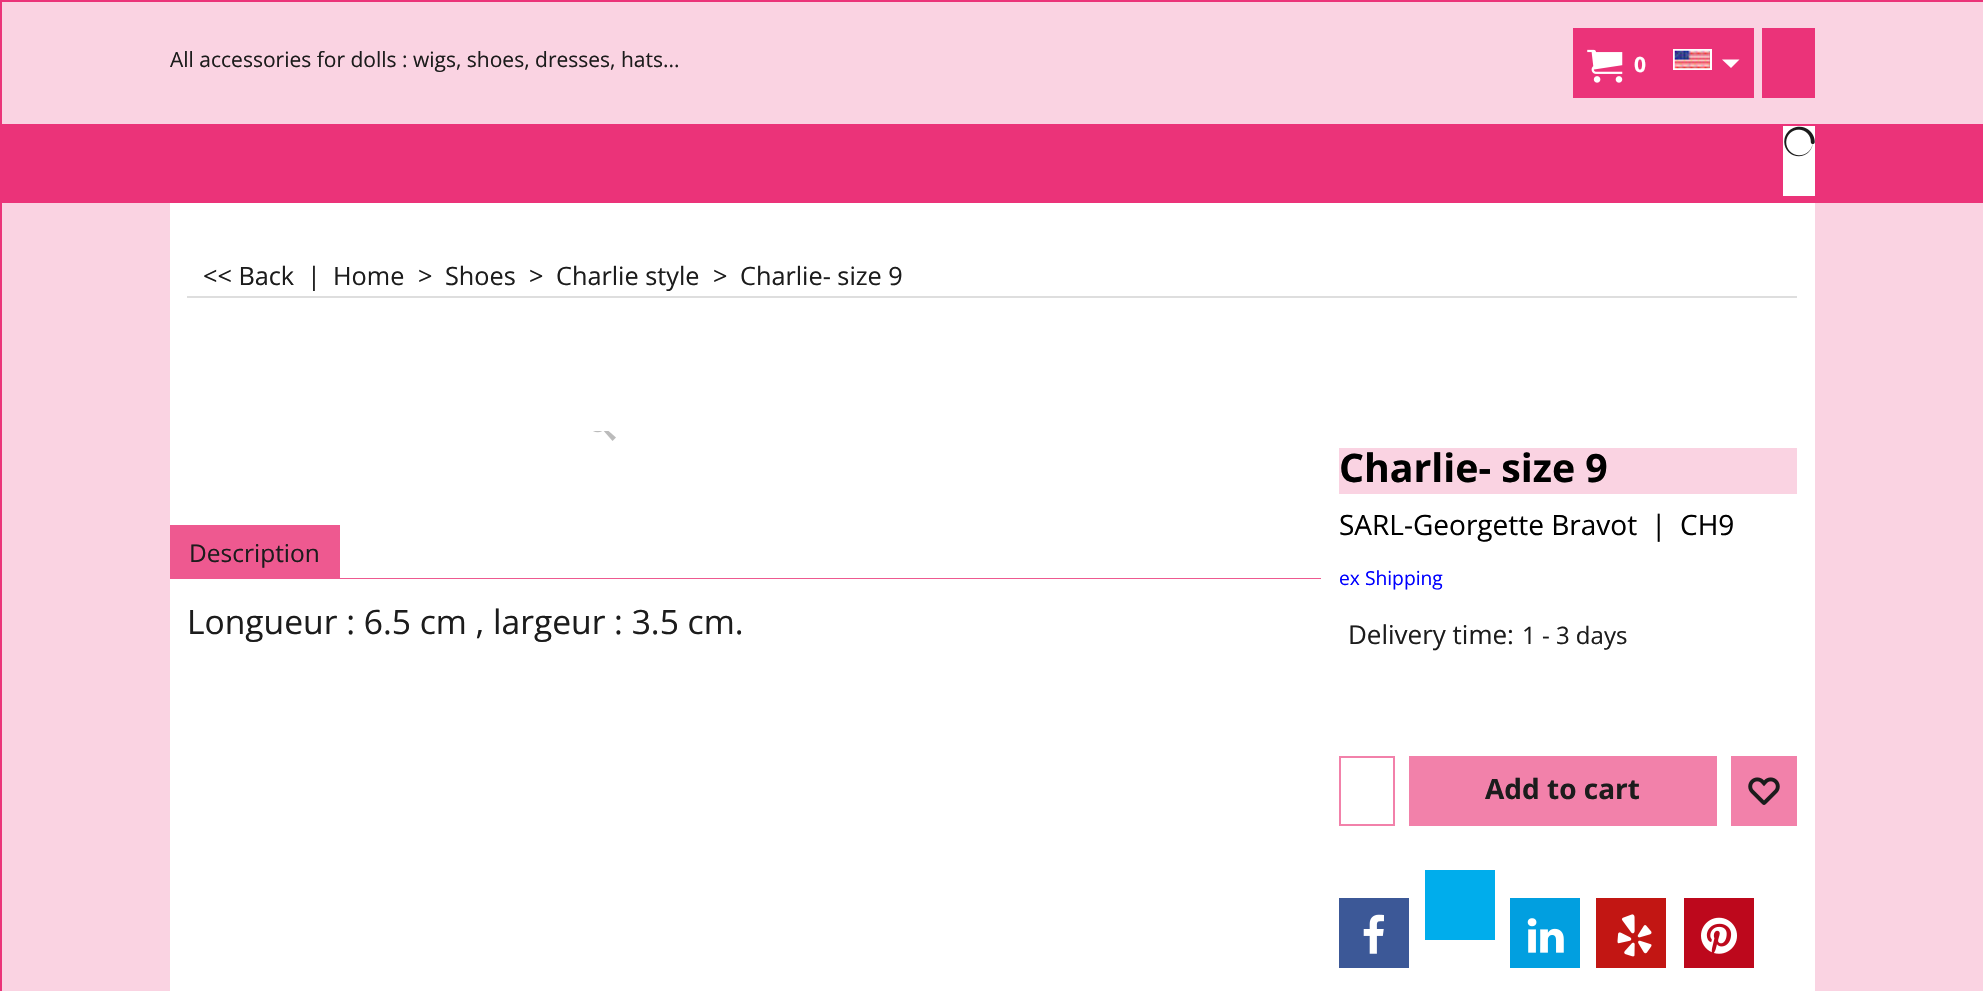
void draw(SkCanvas* canvas) {
    SkPaint paint;
    paint.setAntiAlias(true);
    auto face = [&](const char* family, int weight, float size, bool italic = false) {
        SkFontStyle style(weight, SkFontStyle::kNormal_Width,
            italic ? SkFontStyle::kItalic_Slant : SkFontStyle::kUpright_Slant);
        SkFont result(fontMgr->matchFamilyStyle(family, style), size);
        result.setSubpixel(true);
        return result;
    };
    auto write = [&](const char* s, float x, float y, const SkFont& font, SkColor color) {
        SkPaint ink(SkColor4f::FromColor(color));
        ink.setAntiAlias(true);
        canvas->drawString(s, x, y, font, ink);
    };
    auto block = [&](float x, float y, float w, float h, SkColor color) {
        SkPaint ink(SkColor4f::FromColor(color));
        ink.setAntiAlias(true);
        canvas->drawRect(SkRect::MakeXYWH(x, y, w, h), ink);
    };
    auto paste = [&](const char* path, float x, float y, float w, float h) {
        auto image = SkImages::DeferredFromEncodedData(SkData::MakeFromFileName(path));
        canvas->drawImageRect(image, SkRect::MakeXYWH(x, y, w, h), SkSamplingOptions());
    };
    canvas->clear(SkColorSetRGB(250, 211, 226));
    paint.setStyle(SkPaint::kStroke_Style);
    paint.setStrokeWidth(2);
    paint.setColor(SkColorSetRGB(235, 51, 121));
    canvas->drawRect(SkRect::MakeXYWH(1, 1, 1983, 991), paint);
    block(2, 124, 1981, 79, SkColorSetRGB(235, 51, 121));
    auto kFont1 = face("Open Sans", 400, 21);
    write("All accessories for dolls : wigs, shoes, dresses, hats...", 170, 67, kFont1, SkColorSetRGB(28, 28, 28));
    block(1573, 28, 181, 70, SkColorSetRGB(235, 51, 121));
    paste("pic1.png", 1587, 49, 36, 34);
    auto kFont2 = face("Open Sans", 700, 21);
    write("0", 1634, 72, kFont2, SK_ColorWHITE);
    paint.setColor(SK_ColorWHITE);
    canvas->drawRect(SkRect::MakeXYWH(1674, 50, 37, 19), paint);
    paste("pic2.png", 1674, 50, 36, 19);
    paint.setStyle(SkPaint::kFill_Style);
    canvas->drawPath(SkPathBuilder().moveTo(1722, 59.5f).lineTo(1731, 68).lineTo(1739.5f, 59.5f).close().detach(), paint);
    block(1762, 28, 53, 70, SkColorSetRGB(235, 51, 121));
    block(1783, 126, 32, 70, SK_ColorWHITE);
    paste("pic3.png", 1784, 126, 31, 31);
    block(170, 203, 1645, 788, SK_ColorWHITE);
    block(187, 296, 1610, 2, SkColorSetRGB(222, 222, 222));
    auto kFont3 = face("Open Sans", 400, 25.25f);
    write("<< Back", 203, 285, kFont3, SkColorSetRGB(28, 28, 28));
    write("|", 307, 285, kFont3, SkColorSetRGB(28, 28, 28));
    write("Home", 333, 285, kFont3, SkColorSetRGB(28, 28, 28));
    write(">", 418, 285, kFont3, SkColorSetRGB(28, 28, 28));
    write("Shoes", 445, 285, kFont3, SkColorSetRGB(28, 28, 28));
    write(">", 529, 285, kFont3, SkColorSetRGB(28, 28, 28));
    write("Charlie style", 556, 285, kFont3, SkColorSetRGB(28, 28, 28));
    write(">", 713, 285, kFont3, SkColorSetRGB(28, 28, 28));
    write("Charlie- size 9", 740, 285, kFont3, SkColorSetRGB(28, 28, 28));
    paste("pic4.png", 593, 431, 23, 10);
    block(170, 525, 170, 54, SkColorSetRGB(238, 89, 144));
    auto kFont4 = face("Open Sans", 400, 24.5f);
    write("Description", 189, 562, kFont4, SkColorSetRGB(28, 28, 28));
    block(340, 578, 981, 1, SkColorSetRGB(238, 89, 144));
    block(1339, 448, 458, 46, SkColorSetRGB(250, 211, 226));
    auto kFont5 = face("Open Sans", 700, 39.25f);
    write("Charlie- size 9", 1339, 482, kFont5, SK_ColorBLACK);
    auto kFont6 = face("Open Sans", 400, 28);
    write("SARL-Georgette Bravot", 1339, 535, kFont6, SK_ColorBLACK);
    write("|", 1651, 535, kFont6, SK_ColorBLACK);
    write("CH9", 1680, 535, kFont6, SK_ColorBLACK);
    auto kFont7 = face("Open Sans", 400, 19.25f);
    write("ex Shipping", 1339, 585, kFont7, SkColorSetRGB(0, 0, 255));
    auto kFont8 = face("Open Sans", 400, 26);
    write("Delivery time:", 1348, 644, kFont8, SkColorSetRGB(28, 28, 28));
    auto kFont9 = face("Open Sans", 400, 24);
    write("1 - 3 days", 1522, 644, kFont9, SkColorSetRGB(28, 28, 28));
    block(1339, 756, 56, 70, SkColorSetRGB(242, 129, 170));
    block(1341, 758, 52, 66, SK_ColorWHITE);
    block(1409, 756, 308, 70, SkColorSetRGB(242, 129, 170));
    auto kFont10 = face("Open Sans", 700, 28);
    write("Add to cart", 1485, 799, kFont10, SkColorSetRGB(28, 28, 28));
    block(1731, 756, 66, 70, SkColorSetRGB(242, 129, 170));
    paste("pic5.png", 1748, 777, 32, 28);
    block(1339, 898, 70, 70, SkColorSetRGB(60, 88, 151));
    paste("pic6.png", 1363, 914, 21, 40);
    block(1425, 870, 70, 70, SkColorSetRGB(0, 173, 236));
    block(1510, 898, 70, 70, SkColorSetRGB(1, 159, 224));
    paste("pic7.png", 1527, 918, 37, 35);
    block(1596, 898, 70, 70, SkColorSetRGB(194, 22, 19));
    paste("pic8.png", 1617, 914, 35, 43);
    block(1684, 898, 70, 70, SkColorSetRGB(189, 8, 28));
    paste("pic9.png", 1701, 917, 36, 37);
    auto kFont11 = face("Open Sans", 400, 33.6f);
    write("Longueur : 6.5 cm , largeur : 3.5 cm.", 187, 634, kFont11, SkColorSetRGB(28, 28, 28));
}
